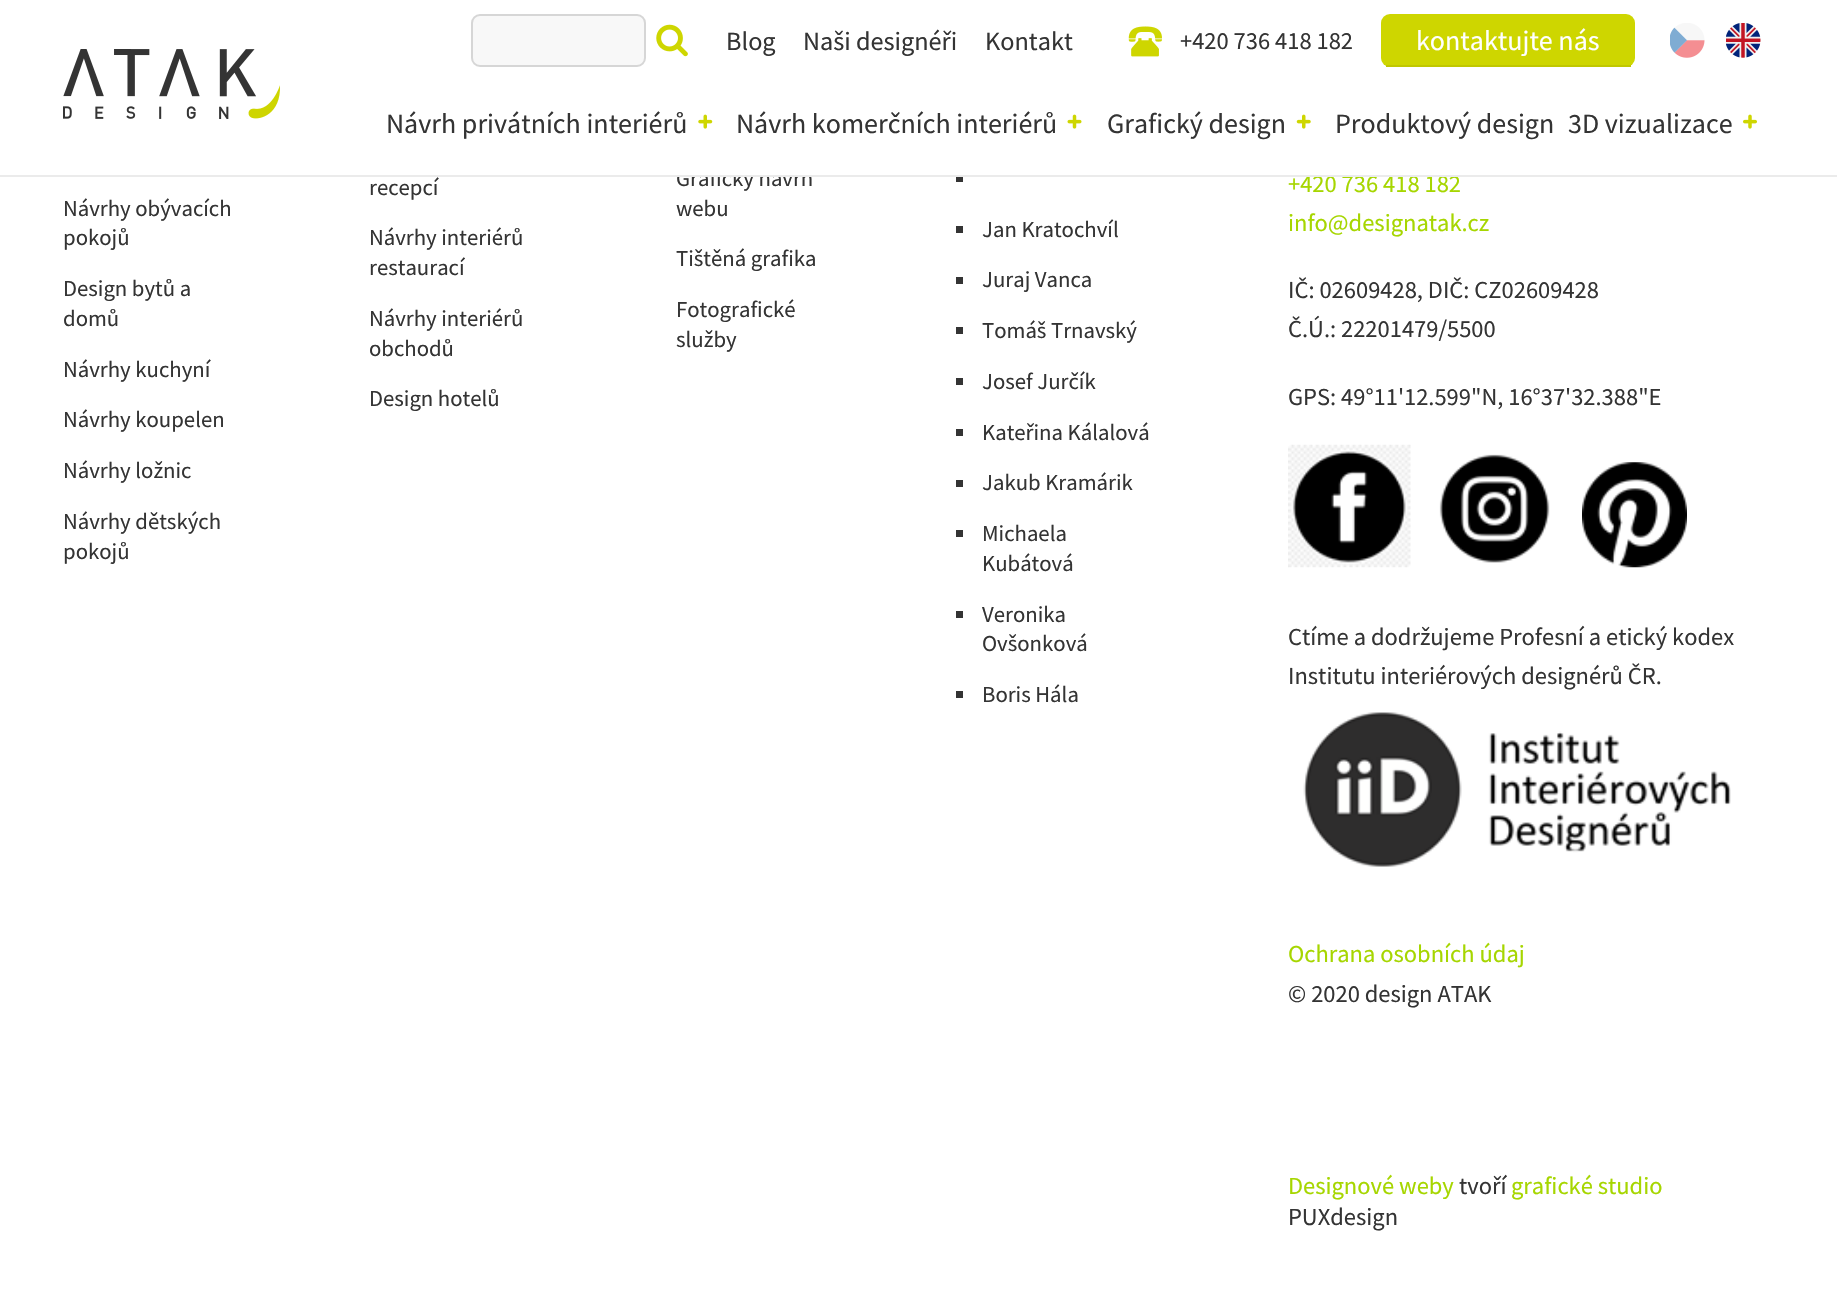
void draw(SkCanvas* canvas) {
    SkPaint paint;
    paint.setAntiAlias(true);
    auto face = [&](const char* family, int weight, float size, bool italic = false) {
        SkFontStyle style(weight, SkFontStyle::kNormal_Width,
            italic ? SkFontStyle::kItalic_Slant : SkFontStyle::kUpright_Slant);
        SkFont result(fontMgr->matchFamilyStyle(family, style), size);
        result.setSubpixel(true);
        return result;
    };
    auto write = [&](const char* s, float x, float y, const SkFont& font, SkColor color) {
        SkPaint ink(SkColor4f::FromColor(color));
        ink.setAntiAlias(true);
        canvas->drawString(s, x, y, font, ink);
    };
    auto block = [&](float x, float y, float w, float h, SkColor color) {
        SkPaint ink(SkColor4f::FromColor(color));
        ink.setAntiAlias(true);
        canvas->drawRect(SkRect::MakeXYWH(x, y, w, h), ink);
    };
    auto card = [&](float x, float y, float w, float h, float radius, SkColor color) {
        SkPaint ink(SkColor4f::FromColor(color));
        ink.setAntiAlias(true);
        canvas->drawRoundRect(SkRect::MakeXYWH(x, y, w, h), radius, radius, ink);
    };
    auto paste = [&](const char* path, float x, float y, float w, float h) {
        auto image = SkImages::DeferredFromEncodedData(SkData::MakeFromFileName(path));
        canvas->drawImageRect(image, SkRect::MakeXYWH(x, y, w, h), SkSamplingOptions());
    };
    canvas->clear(SK_ColorWHITE);
    auto kFont1 = face("Source Sans Pro", 400, 22.75f);
    write("Grafický návrh", 676, 186, kFont1, SkColorSetRGB(52, 52, 52));
    block(677, 168, 133, 7, SK_ColorWHITE);
    auto kFont2 = face("Source Sans Pro", 400, 24.5f);
    write("+420 736 418 182", 1288, 192, kFont2, SkColorSetRGB(166, 214, 0));
    block(0, 175, 1837, 2, SkColorSetRGB(235, 235, 235));
    paste("pic1.png", 63, 49, 217, 70);
    paint.setColor(SkColorSetRGB(248, 248, 248));
    canvas->drawRoundRect(SkRect::MakeXYWH(472, 15, 173, 51), 8, 8, paint);
    paint.setStyle(SkPaint::kStroke_Style);
    paint.setStrokeWidth(2);
    paint.setColor(SkColorSetRGB(214, 214, 214));
    canvas->drawRoundRect(SkRect::MakeXYWH(472, 15, 173, 51), 8, 8, paint);
    paste("pic2.png", 656, 24, 32, 33);
    auto kFont3 = face("Source Sans Pro", 400, 26.25f);
    write("Blog", 726, 50, kFont3, SkColorSetRGB(52, 52, 52));
    write("Naši designéři", 803, 50, kFont3, SkColorSetRGB(52, 52, 52));
    write("Kontakt", 985, 50, kFont3, SkColorSetRGB(52, 52, 52));
    paste("pic3.png", 1128, 26, 34, 31);
    write("+420 736 418 182", 1180, 49, kFont2, SkColorSetRGB(52, 52, 52));
    card(1381, 14, 254, 53, 9, SkColorSetRGB(206, 214, 0));
    block(1386, 65, 245, 2, SkColorSetRGB(192, 199, 0));
    auto kFont4 = face("Source Sans Pro", 400, 28);
    write("kontaktujte nás", 1416, 50, kFont4, SK_ColorWHITE);
    paste("pic4.png", 1670, 23, 35, 35);
    paste("pic5.png", 1726, 23, 35, 35);
    write("Návrh privátních interiérů", 386, 133, kFont4, SkColorSetRGB(52, 52, 52));
    paste("pic6.png", 698, 114, 15, 15);
    write("Návrh komerčních interiérů", 736, 133, kFont4, SkColorSetRGB(52, 52, 52));
    paste("pic7.png", 1067, 114, 15, 15);
    write("Grafický design", 1107, 133, kFont4, SkColorSetRGB(52, 52, 52));
    paste("pic8.png", 1296, 114, 15, 15);
    write("Produktový design", 1335, 133, kFont4, SkColorSetRGB(52, 52, 52));
    write("3D vizualizace", 1568, 133, kFont4, SkColorSetRGB(52, 52, 52));
    paste("pic9.png", 1743, 114, 14, 15);
    write("Návrhy obývacích", 63, 216, kFont1, SkColorSetRGB(52, 52, 52));
    write("pokojů", 63, 245, kFont1, SkColorSetRGB(52, 52, 52));
    write("Design bytů a", 63, 296, kFont1, SkColorSetRGB(52, 52, 52));
    write("domů", 63, 326, kFont1, SkColorSetRGB(52, 52, 52));
    write("Návrhy kuchyní", 63, 377, kFont1, SkColorSetRGB(52, 52, 52));
    write("Návrhy koupelen", 63, 427, kFont1, SkColorSetRGB(52, 52, 52));
    write("Návrhy ložnic", 63, 478, kFont1, SkColorSetRGB(52, 52, 52));
    write("Návrhy dětských", 63, 529, kFont1, SkColorSetRGB(52, 52, 52));
    write("pokojů", 63, 559, kFont1, SkColorSetRGB(52, 52, 52));
    write("recepcí", 369, 195, kFont1, SkColorSetRGB(52, 52, 52));
    write("Návrhy interiérů", 369, 245, kFont1, SkColorSetRGB(52, 52, 52));
    write("restaurací", 369, 275, kFont1, SkColorSetRGB(52, 52, 52));
    write("Návrhy interiérů", 369, 326, kFont1, SkColorSetRGB(52, 52, 52));
    write("obchodů", 369, 356, kFont1, SkColorSetRGB(52, 52, 52));
    write("Design hotelů", 369, 406, kFont1, SkColorSetRGB(52, 52, 52));
    write("webu", 676, 216, kFont1, SkColorSetRGB(52, 52, 52));
    write("Tištěná grafika", 676, 266, kFont1, SkColorSetRGB(52, 52, 52));
    write("Fotografické", 676, 317, kFont1, SkColorSetRGB(52, 52, 52));
    write("služby", 676, 347, kFont1, SkColorSetRGB(52, 52, 52));
    block(956, 177, 7, 5, SkColorSetRGB(52, 52, 52));
    block(956, 226, 7, 7, SkColorSetRGB(52, 52, 52));
    write("Jan Kratochvíl", 982, 237, kFont1, SkColorSetRGB(52, 52, 52));
    block(956, 277, 7, 7, SkColorSetRGB(52, 52, 52));
    write("Juraj Vanca", 982, 287, kFont1, SkColorSetRGB(52, 52, 52));
    block(956, 327, 7, 7, SkColorSetRGB(52, 52, 52));
    write("Tomáš Trnavský", 982, 338, kFont1, SkColorSetRGB(52, 52, 52));
    block(956, 378, 7, 7, SkColorSetRGB(52, 52, 52));
    write("Josef Jurčík", 982, 389, kFont1, SkColorSetRGB(52, 52, 52));
    block(956, 429, 7, 7, SkColorSetRGB(52, 52, 52));
    write("Kateřina Kálalová", 982, 440, kFont1, SkColorSetRGB(52, 52, 52));
    block(956, 480, 7, 7, SkColorSetRGB(52, 52, 52));
    write("Jakub Kramárik", 982, 490, kFont1, SkColorSetRGB(52, 52, 52));
    block(956, 530, 7, 7, SkColorSetRGB(52, 52, 52));
    write("Michaela", 982, 541, kFont1, SkColorSetRGB(52, 52, 52));
    write("Kubátová", 982, 571, kFont1, SkColorSetRGB(52, 52, 52));
    block(956, 611, 7, 7, SkColorSetRGB(52, 52, 52));
    write("Veronika", 982, 622, kFont1, SkColorSetRGB(52, 52, 52));
    write("Ovšonková", 982, 651, kFont1, SkColorSetRGB(52, 52, 52));
    block(956, 691, 7, 7, SkColorSetRGB(52, 52, 52));
    write("Boris Hála", 982, 702, kFont1, SkColorSetRGB(52, 52, 52));
    write("info@designatak.cz", 1288, 231, kFont2, SkColorSetRGB(166, 214, 0));
    write("IČ: 02609428, DIČ: CZ02609428", 1288, 298, kFont2, SkColorSetRGB(52, 52, 52));
    write("Č.Ú.: 22201479/5500", 1288, 337, kFont2, SkColorSetRGB(52, 52, 52));
    write("GPS: 49°11'12.599\"N, 16°37'32.388\"E", 1288, 405, kFont2, SkColorSetRGB(52, 52, 52));
    paste("pic10.png", 1288, 444, 123, 124);
    paste("pic11.png", 1439, 454, 111, 109);
    paste("pic12.png", 1582, 462, 105, 106);
    write("Ctíme a dodržujeme Profesní a etický kodex", 1288, 645, kFont2, SkColorSetRGB(52, 52, 52));
    write("Institutu interiérových designérů ČR.", 1288, 684, kFont2, SkColorSetRGB(52, 52, 52));
    paste("pic13.png", 1303, 712, 428, 155);
    write("Ochrana osobních údaj", 1288, 962, kFont2, SkColorSetRGB(166, 214, 0));
    write("© 2020 design ATAK", 1288, 1002, kFont2, SkColorSetRGB(52, 52, 52));
    write("Designové weby", 1288, 1194, kFont2, SkColorSetRGB(166, 214, 0));
    write("tvoří", 1459, 1194, kFont2, SkColorSetRGB(52, 52, 52));
    write("grafické studio", 1511, 1194, kFont2, SkColorSetRGB(166, 214, 0));
    write("PUXdesign", 1288, 1225, kFont2, SkColorSetRGB(52, 52, 52));
}
